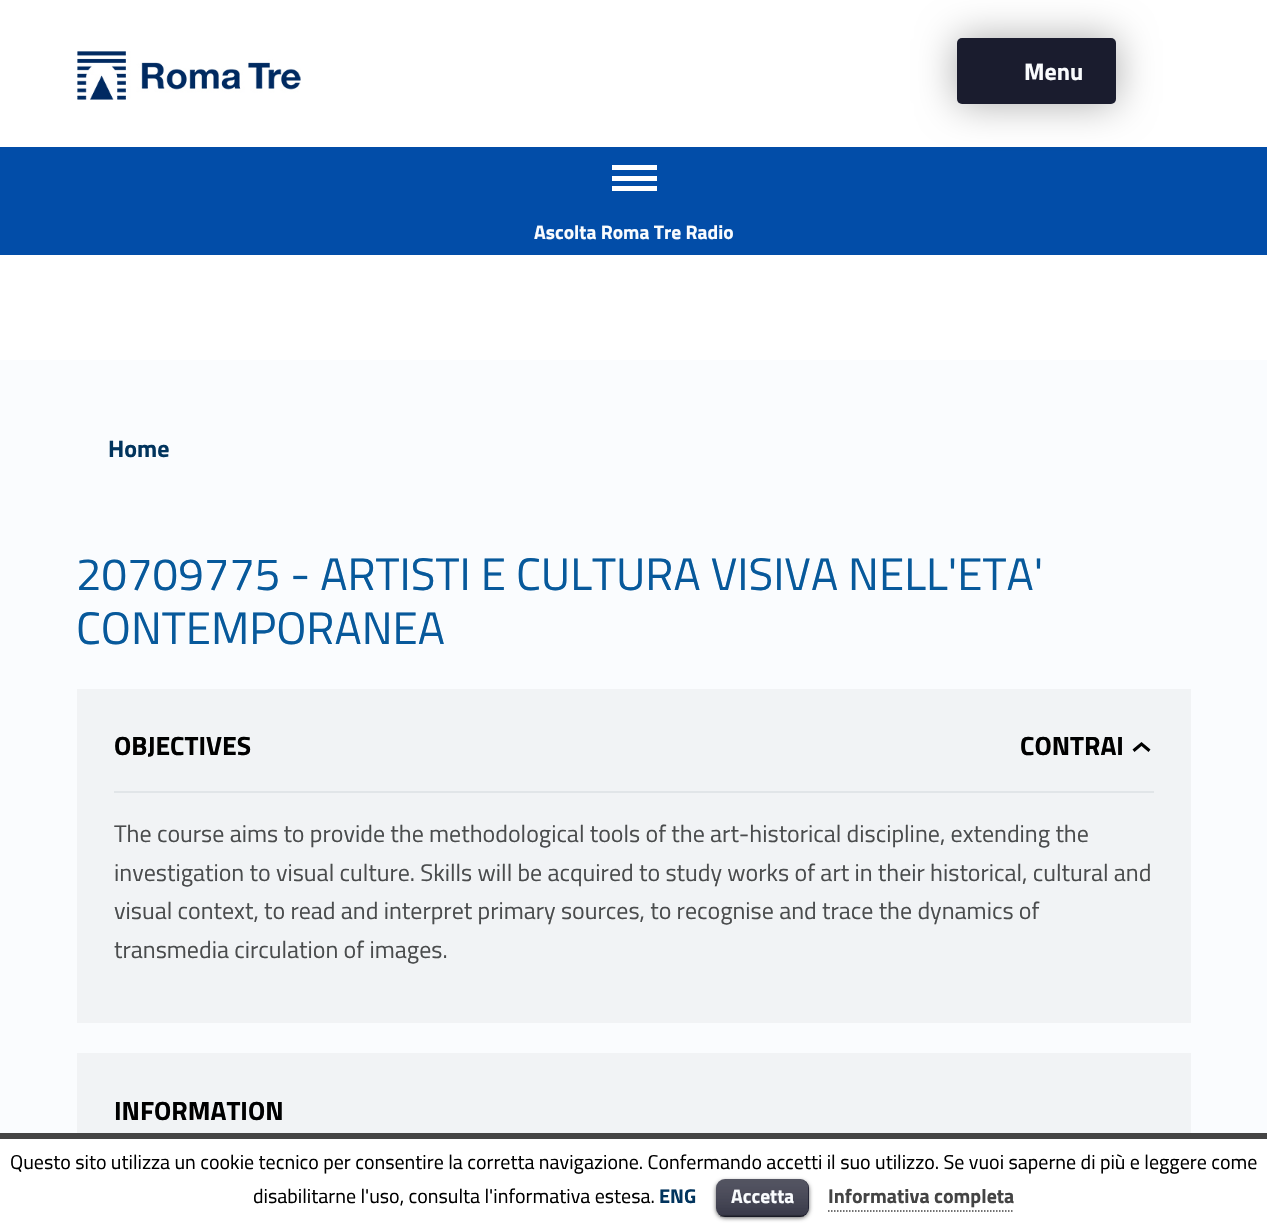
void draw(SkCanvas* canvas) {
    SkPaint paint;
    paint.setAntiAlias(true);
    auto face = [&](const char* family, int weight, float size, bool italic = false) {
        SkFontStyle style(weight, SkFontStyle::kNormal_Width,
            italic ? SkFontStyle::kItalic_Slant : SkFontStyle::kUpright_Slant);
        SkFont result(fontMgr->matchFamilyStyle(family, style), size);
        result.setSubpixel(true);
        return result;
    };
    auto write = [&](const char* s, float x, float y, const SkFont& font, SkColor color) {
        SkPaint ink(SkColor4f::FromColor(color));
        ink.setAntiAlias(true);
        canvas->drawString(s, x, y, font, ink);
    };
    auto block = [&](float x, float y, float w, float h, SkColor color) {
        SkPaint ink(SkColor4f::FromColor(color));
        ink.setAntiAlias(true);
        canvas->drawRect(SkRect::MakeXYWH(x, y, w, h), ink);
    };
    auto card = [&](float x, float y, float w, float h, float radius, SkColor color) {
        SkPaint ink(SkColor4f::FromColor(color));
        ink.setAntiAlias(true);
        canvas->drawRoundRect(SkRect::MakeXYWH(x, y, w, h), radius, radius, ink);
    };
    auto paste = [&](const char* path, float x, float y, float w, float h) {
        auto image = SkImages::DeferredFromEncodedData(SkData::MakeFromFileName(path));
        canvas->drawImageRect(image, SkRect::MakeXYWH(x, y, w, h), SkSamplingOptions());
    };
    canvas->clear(SkColorSetRGB(250, 252, 254));
    block(0, 0, 1267, 360, SK_ColorWHITE);
    paste("pic1.png", 77, 51, 224, 49);
    block(0, 147, 1267, 108, SkColorSetRGB(2, 77, 168));
    paint.setColor(SkColorSetARGB(84, 0, 0, 0));
    paint.setMaskFilter(SkMaskFilter::MakeBlur(kNormal_SkBlurStyle, 19.5f));
    canvas->drawRoundRect(SkRect::MakeXYWH(957, 38, 159, 66), 5, 5, paint);
    paint.setMaskFilter(nullptr);
    card(957, 38, 159, 66, 5, SkColorSetRGB(26, 28, 46));
    auto kFont1 = face("Titillium Web", 700, 24);
    write("Menu", 1024, 80, kFont1, SkColorSetRGB(250, 252, 254));
    block(612, 165, 45, 5, SK_ColorWHITE);
    block(612, 176, 45, 5, SK_ColorWHITE);
    block(612, 186, 45, 5, SK_ColorWHITE);
    auto kFont2 = face("Titillium Web", 700, 19.5f);
    write("Ascolta Roma Tre Radio", 534, 239, kFont2, SkColorSetRGB(250, 252, 254));
    write("Home", 108, 457, kFont1, SkColorSetRGB(1, 52, 93));
    auto kFont3 = face("Titillium Web", 400, 45.6f);
    write("20709775 - ARTISTI E CULTURA VISIVA NELL'ETA'", 76, 590, kFont3, SkColorSetRGB(7, 89, 155));
    write("CONTEMPORANEA", 76, 644, kFont3, SkColorSetRGB(7, 89, 155));
    block(77, 689, 1114, 334, SkColorSetRGB(241, 243, 245));
    auto kFont4 = face("Titillium Web", 700, 26.5f);
    write("OBJECTIVES", 114, 755, kFont4, SK_ColorBLACK);
    write("CONTRAI", 1020, 755, kFont4, SK_ColorBLACK);
    paint.setColor(SK_ColorBLACK);
    canvas->drawPath(SkPathBuilder().moveTo(1141.5f, 742).lineTo(1132.5f, 749.5f).lineTo(1134.5f, 752).lineTo(1141.5f, 746).lineTo(1148.5f, 752).lineTo(1150.5f, 749.5f).close().detach(), paint);
    block(114, 791, 1040, 2, SkColorSetRGB(225, 229, 232));
    auto kFont5 = face("Titillium Web", 400, 24);
    write("The course aims to provide the methodological tools of the art-historical discipline, extending the", 114, 842, kFont5, SkColorSetRGB(74, 76, 77));
    write("investigation to visual culture. Skills will be acquired to study works of art in their historical, cultural and", 114, 881, kFont5, SkColorSetRGB(74, 76, 77));
    write("visual context, to read and interpret primary sources, to recognise and trace the dynamics of", 114, 919, kFont5, SkColorSetRGB(74, 76, 77));
    write("transmedia circulation of images.", 114, 958, kFont5, SkColorSetRGB(74, 76, 77));
    block(77, 1053, 1114, 80, SkColorSetRGB(241, 243, 245));
    write("INFORMATION", 114, 1120, kFont4, SK_ColorBLACK);
    block(0, 1139, 1267, 84, SK_ColorWHITE);
    block(0, 1133, 1267, 6, SkColorSetRGB(68, 68, 68));
    auto kFont6 = face("Titillium Web", 400, 20);
    write("Questo sito utilizza un cookie tecnico per consentire la corretta navigazione. Confermando accetti il suo utilizzo. Se vuoi saperne di più e leggere come", 10, 1169, kFont6, SK_ColorBLACK);
    write("disabilitarne l'uso, consulta l'informativa estesa.", 253, 1203, kFont6, SK_ColorBLACK);
    auto kFont7 = face("Titillium Web", 700, 20);
    write("ENG", 659, 1203, kFont7, SkColorSetRGB(1, 52, 93));
    paint.setColor(SkColorSetARGB(153, 0, 0, 0));
    paint.setMaskFilter(SkMaskFilter::MakeBlur(kNormal_SkBlurStyle, 2));
    canvas->drawRoundRect(SkRect::MakeXYWH(716, 1181, 93, 37), 9, 9, paint);
    paint.setMaskFilter(nullptr);
    card(716, 1179, 93, 38, 9, SkColorSetRGB(26, 27, 45));
    paste("pic2.png", 716, 1179, 93, 38);
    block(720, 1215, 84, 2, SkColorSetARGB(64, 0, 0, 0));
    write("Accetta", 731, 1203, kFont2, SkColorSetRGB(250, 252, 254));
    write("Informativa completa", 828, 1203, kFont7, SkColorSetRGB(68, 68, 68));
    paint.setStyle(SkPaint::kStroke_Style);
    paint.setStrokeWidth(1.5f);
    paint.setColor(SkColorSetRGB(68, 68, 68));
    paint.setPathEffect(SkDashPathEffect::Make({{1.5f, 1.5f}}, 0));
    canvas->drawPath(SkPathBuilder().moveTo(828, 1211).lineTo(1014, 1211).detach(), paint);
    paint.setPathEffect(nullptr);
}
